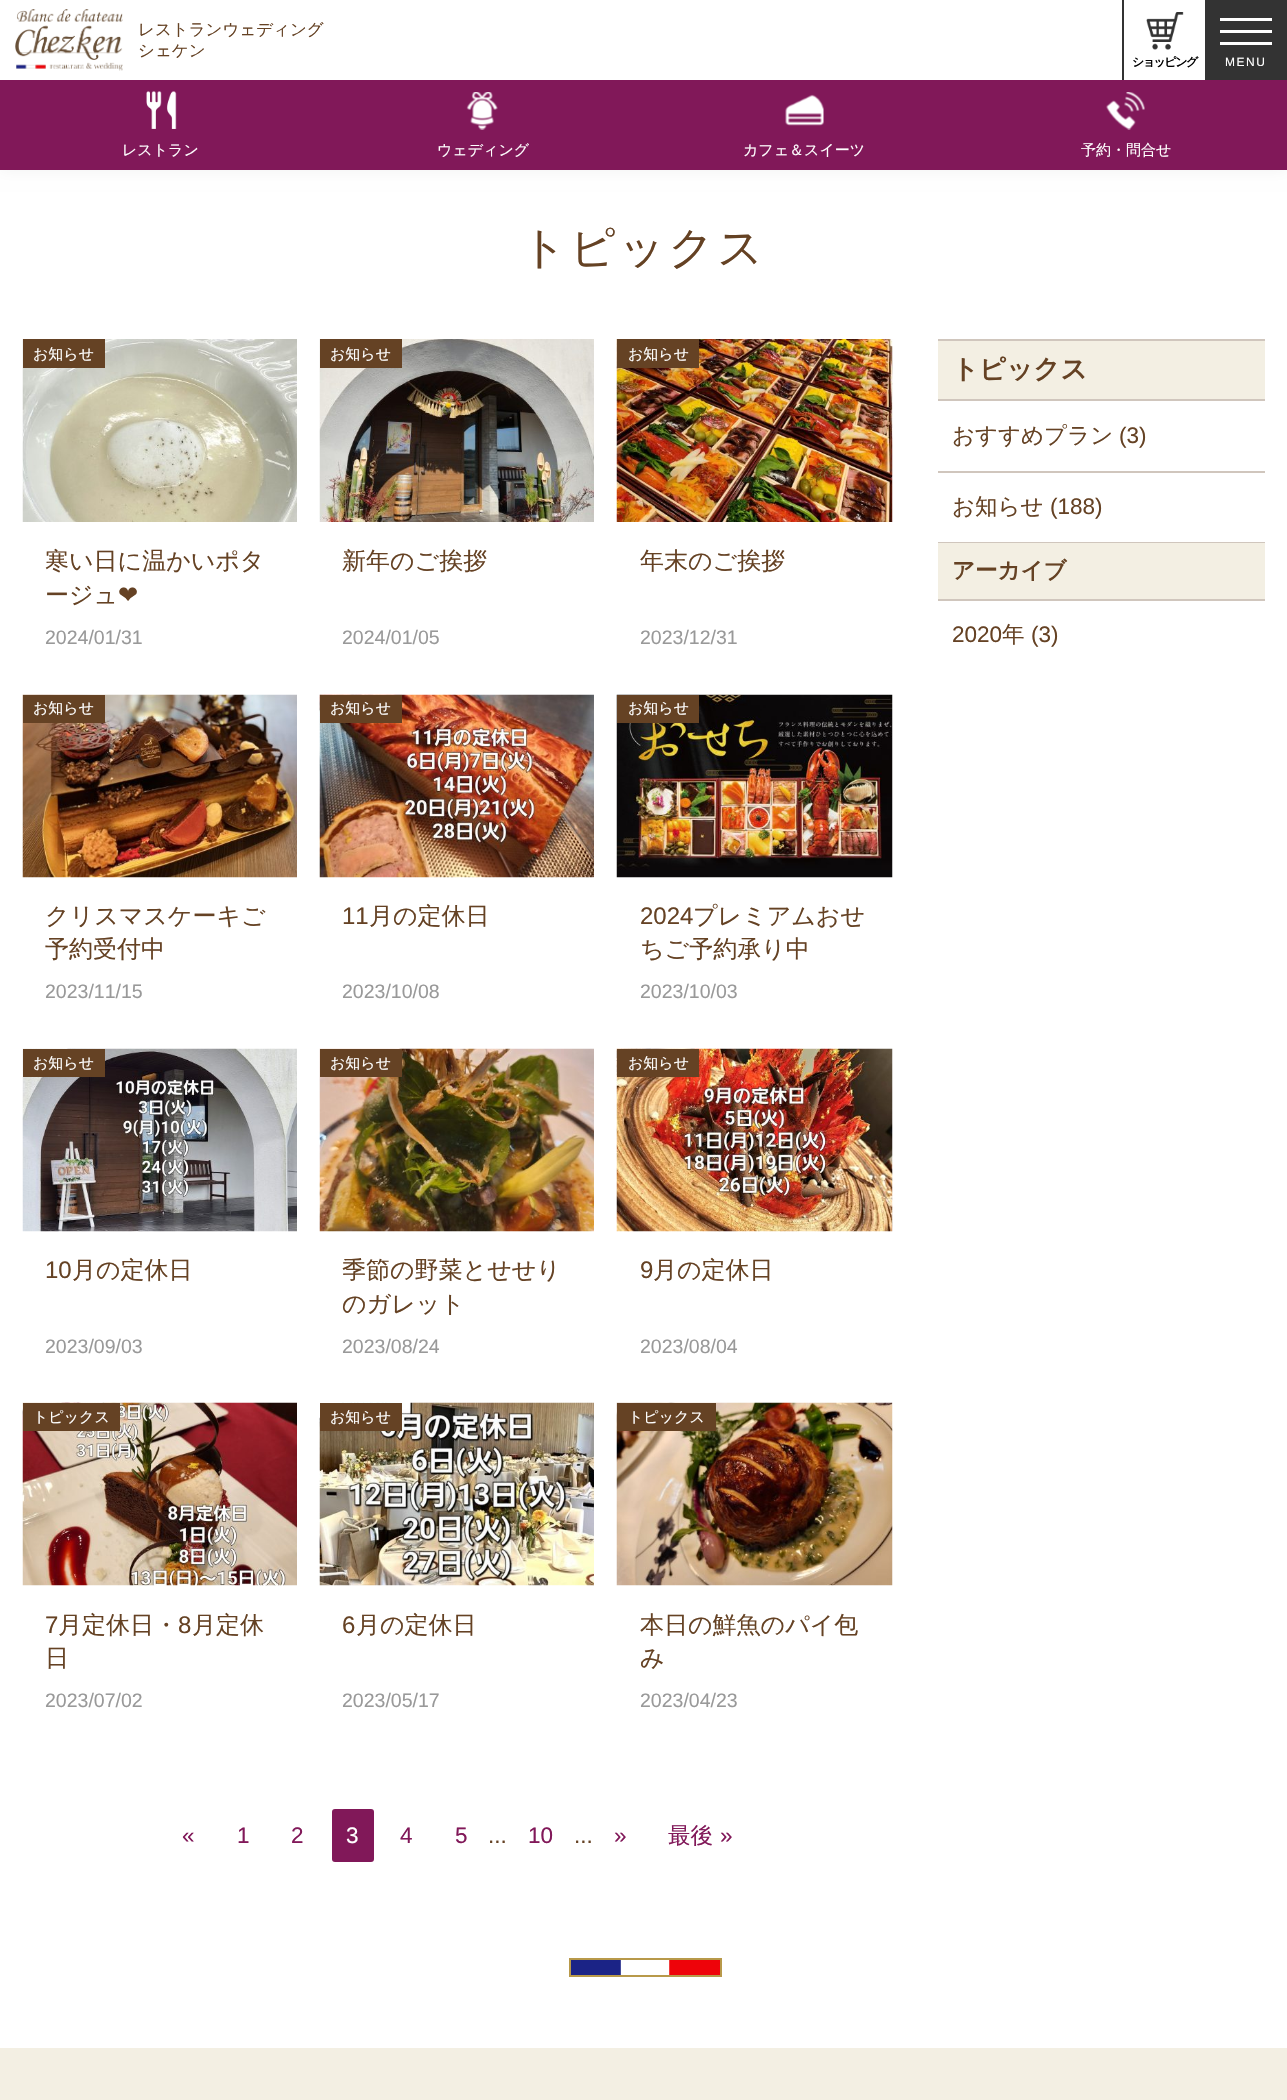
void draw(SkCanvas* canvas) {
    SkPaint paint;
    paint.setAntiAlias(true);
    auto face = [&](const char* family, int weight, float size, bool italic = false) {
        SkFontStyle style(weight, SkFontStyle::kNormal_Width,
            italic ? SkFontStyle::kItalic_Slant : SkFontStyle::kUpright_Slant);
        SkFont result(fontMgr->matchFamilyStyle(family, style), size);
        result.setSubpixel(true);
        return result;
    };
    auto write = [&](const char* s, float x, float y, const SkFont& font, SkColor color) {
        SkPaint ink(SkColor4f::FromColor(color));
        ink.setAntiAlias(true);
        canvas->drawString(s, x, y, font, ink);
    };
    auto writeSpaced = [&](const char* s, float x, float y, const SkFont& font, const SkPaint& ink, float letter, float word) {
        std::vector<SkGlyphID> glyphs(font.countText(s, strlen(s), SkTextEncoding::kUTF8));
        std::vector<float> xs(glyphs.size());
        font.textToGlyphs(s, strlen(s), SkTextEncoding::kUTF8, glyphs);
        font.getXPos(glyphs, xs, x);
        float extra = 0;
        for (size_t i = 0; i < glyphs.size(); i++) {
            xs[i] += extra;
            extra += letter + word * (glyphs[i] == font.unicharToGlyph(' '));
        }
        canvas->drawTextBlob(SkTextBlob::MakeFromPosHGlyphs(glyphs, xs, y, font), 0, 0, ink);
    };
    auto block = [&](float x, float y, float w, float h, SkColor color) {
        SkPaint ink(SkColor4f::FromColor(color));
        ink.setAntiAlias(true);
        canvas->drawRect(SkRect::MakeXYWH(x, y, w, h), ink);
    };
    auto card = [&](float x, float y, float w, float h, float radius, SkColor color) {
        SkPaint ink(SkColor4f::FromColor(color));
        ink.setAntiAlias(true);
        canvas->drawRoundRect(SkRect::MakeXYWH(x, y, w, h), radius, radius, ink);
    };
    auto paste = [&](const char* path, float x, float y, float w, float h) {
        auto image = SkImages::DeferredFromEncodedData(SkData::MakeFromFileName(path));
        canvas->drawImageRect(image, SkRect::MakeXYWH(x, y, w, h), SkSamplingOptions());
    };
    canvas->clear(SK_ColorWHITE);
    paint.setColor(SkColorSetARGB(13, 0, 0, 0));
    paint.setMaskFilter(SkMaskFilter::MakeBlur(kNormal_SkBlurStyle, 7.5f));
    canvas->drawRect(SkRect::MakeXYWH(0, 0, 1287, 170), paint);
    paint.setMaskFilter(nullptr);
    block(0, 0, 1205, 80, SK_ColorWHITE);
    paste("pic1.png", 15, 9, 108, 62);
    auto kFont1 = face("WenQuanYi Zen Hei", 500, 16.5f);
    write("レストランウェディング", 138, 35, kFont1, SkColorSetRGB(101, 66, 36));
    write("シェケン", 138, 56, kFont1, SkColorSetRGB(101, 66, 36));
    block(0, 80, 1287, 90, SkColorSetRGB(129, 24, 89));
    paste("pic2.png", 146, 91, 31, 38);
    auto kFont2 = face("WenQuanYi Zen Hei", 500, 15);
    write("レストラン", 122, 155, kFont2, SK_ColorWHITE);
    paste("pic3.png", 466, 92, 32, 38);
    write("ウェディング", 437, 155, kFont2, SK_ColorWHITE);
    paste("pic4.png", 785, 94, 39, 32);
    write("カフェ＆スイーツ", 743, 155, kFont2, SK_ColorWHITE);
    paste("pic5.png", 1106, 92, 39, 38);
    write("予約・問合せ", 1081, 155, kFont2, SK_ColorWHITE);
    block(1122, 0, 2, 80, SkColorSetRGB(51, 51, 51));
    paste("pic6.png", 1146, 12, 38, 38);
    auto kFont3 = face("WenQuanYi Zen Hei", 700, 12);
    paint.setColor(SK_ColorBLACK);
    writeSpaced("ショッピング", 1132, 66, kFont3, paint, -1.5f, 0);
    block(1205, 0, 82, 80, SkColorSetRGB(51, 51, 51));
    block(1220, 18, 52, 3, SK_ColorWHITE);
    block(1220, 30, 52, 3, SK_ColorWHITE);
    block(1220, 42, 52, 3, SK_ColorWHITE);
    auto kFont4 = face("Liberation Sans", 400, 12);
    paint.setColor(SK_ColorWHITE);
    writeSpaced("MENU", 1225, 66, kFont4, paint, 1.5f, 0);
    auto kFont5 = face("WenQuanYi Zen Hei", 500, 45);
    paint.setColor(SkColorSetRGB(101, 66, 36));
    writeSpaced("トピックス", 521, 263, kFont5, paint, 3, 0);
    paste("pic7.png", 22, 339, 275, 183);
    block(23, 339, 82, 29, SkColorSetRGB(101, 66, 36));
    write("お知らせ", 33, 359, kFont2, SK_ColorWHITE);
    auto kFont6 = face("WenQuanYi Zen Hei", 500, 24);
    write("寒い日に温かいポタ", 45, 569, kFont6, SkColorSetRGB(101, 66, 36));
    write("ージュ", 45, 603, kFont6, SkColorSetRGB(101, 66, 36));
    auto kFont7 = face("DejaVu Sans", 400, 24);
    write("❤", 118, 603, kFont7, SkColorSetRGB(101, 66, 36));
    auto kFont8 = face("Liberation Sans", 400, 19.5f);
    write("2024/01/31", 45, 644, kFont8, SkColorSetRGB(153, 153, 153));
    paste("pic8.png", 319, 339, 275, 183);
    block(320, 339, 82, 29, SkColorSetRGB(101, 66, 36));
    write("お知らせ", 330, 359, kFont2, SK_ColorWHITE);
    write("新年のご挨拶", 342, 569, kFont6, SkColorSetRGB(101, 66, 36));
    write("2024/01/05", 342, 644, kFont8, SkColorSetRGB(153, 153, 153));
    paste("pic9.png", 616, 339, 277, 183);
    block(617, 339, 82, 29, SkColorSetRGB(101, 66, 36));
    write("お知らせ", 628, 359, kFont2, SK_ColorWHITE);
    write("年末のご挨拶", 640, 569, kFont6, SkColorSetRGB(101, 66, 36));
    write("2023/12/31", 640, 644, kFont8, SkColorSetRGB(153, 153, 153));
    paste("pic10.png", 22, 694, 275, 184);
    block(23, 695, 82, 28, SkColorSetRGB(101, 66, 36));
    write("お知らせ", 33, 713, kFont2, SK_ColorWHITE);
    write("クリスマスケーキご", 45, 924, kFont6, SkColorSetRGB(101, 66, 36));
    write("予約受付中", 45, 957, kFont6, SkColorSetRGB(101, 66, 36));
    write("2023/11/15", 45, 998, kFont8, SkColorSetRGB(153, 153, 153));
    paste("pic11.png", 319, 694, 275, 184);
    block(320, 695, 82, 28, SkColorSetRGB(101, 66, 36));
    write("お知らせ", 330, 713, kFont2, SK_ColorWHITE);
    auto kFont9 = face("Liberation Sans", 400, 24);
    write("11", 342, 924, kFont9, SkColorSetRGB(101, 66, 36));
    write("月の定休日", 369, 924, kFont6, SkColorSetRGB(101, 66, 36));
    write("2023/10/08", 342, 998, kFont8, SkColorSetRGB(153, 153, 153));
    paste("pic12.png", 616, 694, 277, 184);
    block(617, 695, 82, 28, SkColorSetRGB(101, 66, 36));
    write("お知らせ", 628, 713, kFont2, SK_ColorWHITE);
    write("2024", 640, 924, kFont9, SkColorSetRGB(101, 66, 36));
    write("プレミアムおせ", 693, 924, kFont6, SkColorSetRGB(101, 66, 36));
    write("ちご予約承り中", 640, 957, kFont6, SkColorSetRGB(101, 66, 36));
    write("2023/10/03", 640, 998, kFont8, SkColorSetRGB(153, 153, 153));
    paste("pic13.png", 22, 1048, 275, 184);
    block(23, 1049, 82, 28, SkColorSetRGB(101, 66, 36));
    write("お知らせ", 33, 1068, kFont2, SK_ColorWHITE);
    write("10", 45, 1278, kFont9, SkColorSetRGB(101, 66, 36));
    write("月の定休日", 72, 1278, kFont6, SkColorSetRGB(101, 66, 36));
    write("2023/09/03", 45, 1353, kFont8, SkColorSetRGB(153, 153, 153));
    paste("pic14.png", 319, 1048, 275, 184);
    block(320, 1049, 82, 28, SkColorSetRGB(101, 66, 36));
    write("お知らせ", 330, 1068, kFont2, SK_ColorWHITE);
    write("季節の野菜とせせり", 342, 1278, kFont6, SkColorSetRGB(101, 66, 36));
    write("のガレット", 342, 1312, kFont6, SkColorSetRGB(101, 66, 36));
    write("2023/08/24", 342, 1353, kFont8, SkColorSetRGB(153, 153, 153));
    paste("pic15.png", 616, 1048, 277, 184);
    block(617, 1049, 82, 28, SkColorSetRGB(101, 66, 36));
    write("お知らせ", 628, 1068, kFont2, SK_ColorWHITE);
    write("9", 640, 1278, kFont9, SkColorSetRGB(101, 66, 36));
    write("月の定休日", 653, 1278, kFont6, SkColorSetRGB(101, 66, 36));
    write("2023/08/04", 640, 1353, kFont8, SkColorSetRGB(153, 153, 153));
    paste("pic16.png", 22, 1402, 275, 184);
    block(23, 1403, 97, 28, SkColorSetRGB(101, 66, 36));
    write("トピックス", 33, 1422, kFont2, SK_ColorWHITE);
    write("7", 45, 1633, kFont9, SkColorSetRGB(101, 66, 36));
    write("月定休日・", 58, 1633, kFont6, SkColorSetRGB(101, 66, 36));
    write("8", 178, 1633, kFont9, SkColorSetRGB(101, 66, 36));
    write("月定休", 192, 1633, kFont6, SkColorSetRGB(101, 66, 36));
    write("日", 45, 1666, kFont6, SkColorSetRGB(101, 66, 36));
    write("2023/07/02", 45, 1707, kFont8, SkColorSetRGB(153, 153, 153));
    paste("pic17.png", 319, 1402, 275, 184);
    block(320, 1403, 82, 28, SkColorSetRGB(101, 66, 36));
    write("お知らせ", 330, 1422, kFont2, SK_ColorWHITE);
    write("6", 342, 1633, kFont9, SkColorSetRGB(101, 66, 36));
    write("月の定休日", 356, 1633, kFont6, SkColorSetRGB(101, 66, 36));
    write("2023/05/17", 342, 1707, kFont8, SkColorSetRGB(153, 153, 153));
    paste("pic18.png", 616, 1402, 277, 184);
    block(617, 1403, 99, 28, SkColorSetRGB(101, 66, 36));
    write("トピックス", 628, 1422, kFont2, SK_ColorWHITE);
    write("本日の鮮魚のパイ包", 640, 1633, kFont6, SkColorSetRGB(101, 66, 36));
    write("み", 640, 1666, kFont6, SkColorSetRGB(101, 66, 36));
    write("2023/04/23", 640, 1707, kFont8, SkColorSetRGB(153, 153, 153));
    auto kFont10 = face("Liberation Sans", 400, 22.5f);
    write("«", 182, 1843, kFont10, SkColorSetRGB(129, 24, 89));
    write("1", 237, 1843, kFont10, SkColorSetRGB(129, 24, 89));
    write("2", 291, 1843, kFont10, SkColorSetRGB(129, 24, 89));
    card(332, 1809, 42, 53, 3, SkColorSetRGB(129, 24, 89));
    write("3", 346, 1843, kFont10, SK_ColorWHITE);
    write("4", 400, 1843, kFont10, SkColorSetRGB(129, 24, 89));
    write("5", 455, 1843, kFont10, SkColorSetRGB(129, 24, 89));
    write("...", 488, 1843, kFont10, SkColorSetRGB(101, 66, 36));
    write("10", 528, 1843, kFont10, SkColorSetRGB(129, 24, 89));
    write("...", 574, 1843, kFont10, SkColorSetRGB(101, 66, 36));
    write("»", 614, 1843, kFont10, SkColorSetRGB(129, 24, 89));
    auto kFont11 = face("WenQuanYi Zen Hei", 500, 22.5f);
    write("最後", 668, 1843, kFont11, SkColorSetRGB(129, 24, 89));
    write("»", 720, 1843, kFont10, SkColorSetRGB(129, 24, 89));
    block(938, 339, 327, 2, SkColorSetRGB(208, 198, 189));
    block(938, 399, 327, 2, SkColorSetRGB(208, 198, 189));
    block(938, 341, 327, 58, SkColorSetRGB(243, 239, 227));
    auto kFont12 = face("WenQuanYi Zen Hei", 700, 26.5f);
    write("トピックス", 952, 378, kFont12, SkColorSetRGB(101, 66, 36));
    block(938, 471, 327, 2, SkColorSetRGB(208, 198, 189));
    write("おすすめプラン", 952, 443, kFont11, SkColorSetRGB(101, 66, 36));
    write("(3)", 1119, 443, kFont10, SkColorSetRGB(101, 66, 36));
    write("お知らせ", 952, 514, kFont11, SkColorSetRGB(101, 66, 36));
    write("(188)", 1050, 514, kFont10, SkColorSetRGB(101, 66, 36));
    block(938, 542, 327, 1, SkColorSetRGB(208, 198, 189));
    block(938, 599, 327, 2, SkColorSetRGB(208, 198, 189));
    block(938, 543, 327, 56, SkColorSetRGB(243, 239, 227));
    auto kFont13 = face("WenQuanYi Zen Hei", 700, 22.5f);
    write("アーカイブ", 952, 578, kFont13, SkColorSetRGB(101, 66, 36));
    write("2020", 952, 642, kFont10, SkColorSetRGB(101, 66, 36));
    write("年", 1002, 642, kFont11, SkColorSetRGB(101, 66, 36));
    write("(3)", 1031, 642, kFont10, SkColorSetRGB(101, 66, 36));
    block(0, 2048, 1287, 52, SkColorSetRGB(243, 239, 227));
    paste("pic19.png", 571, 1960, 149, 15);
    paint.setStyle(SkPaint::kStroke_Style);
    paint.setStrokeWidth(2);
    paint.setColor(SkColorSetRGB(184, 153, 74));
    canvas->drawRect(SkRect::MakeXYWH(570, 1959, 151, 17), paint);
}
